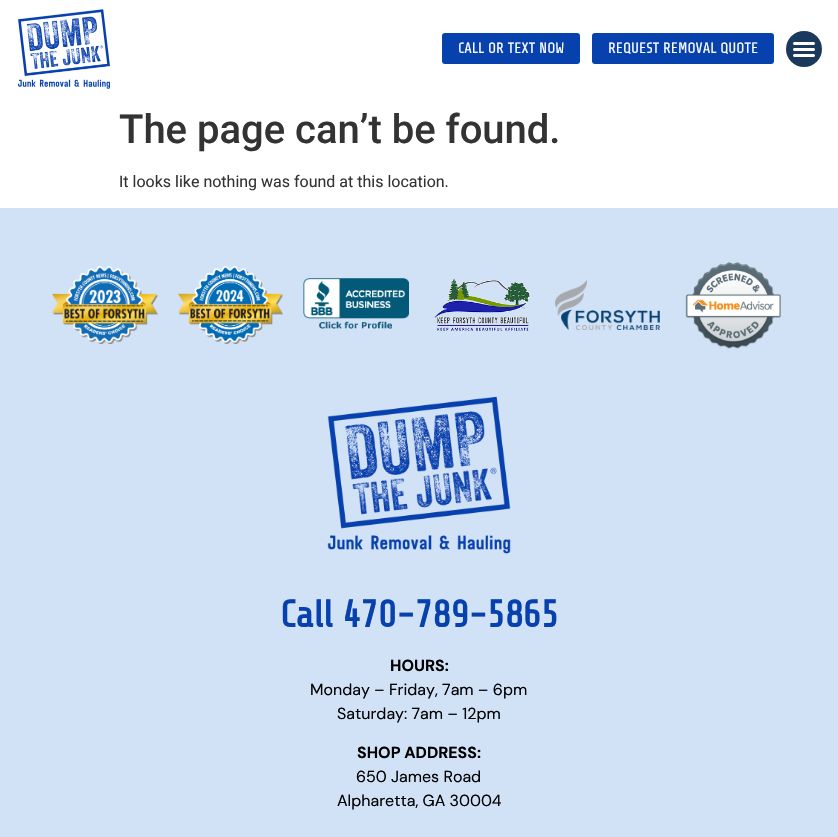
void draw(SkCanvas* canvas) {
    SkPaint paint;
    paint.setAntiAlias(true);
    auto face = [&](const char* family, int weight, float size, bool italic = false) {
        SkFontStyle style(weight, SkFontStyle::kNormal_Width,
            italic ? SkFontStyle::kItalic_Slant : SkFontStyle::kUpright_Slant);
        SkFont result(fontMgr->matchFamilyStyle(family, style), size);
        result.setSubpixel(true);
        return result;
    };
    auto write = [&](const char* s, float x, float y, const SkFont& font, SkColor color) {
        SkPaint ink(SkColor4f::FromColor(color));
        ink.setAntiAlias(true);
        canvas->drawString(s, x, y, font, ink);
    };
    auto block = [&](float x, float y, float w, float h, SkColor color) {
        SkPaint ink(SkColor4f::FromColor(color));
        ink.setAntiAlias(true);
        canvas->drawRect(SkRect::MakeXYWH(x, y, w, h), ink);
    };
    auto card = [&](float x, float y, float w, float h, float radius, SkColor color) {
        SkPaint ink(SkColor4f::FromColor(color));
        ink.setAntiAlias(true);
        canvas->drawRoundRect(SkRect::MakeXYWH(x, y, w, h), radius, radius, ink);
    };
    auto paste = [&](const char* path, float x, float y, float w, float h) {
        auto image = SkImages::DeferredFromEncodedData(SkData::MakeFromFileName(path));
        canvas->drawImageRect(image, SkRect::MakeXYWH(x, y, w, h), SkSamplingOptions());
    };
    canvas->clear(SK_ColorWHITE);
    paste("pic1.png", 18, 9, 92, 80);
    card(442, 33, 138, 31, 3, SkColorSetRGB(7, 65, 174));
    auto kFont1 = face("Share Tech", 400, 15);
    write("CALL OR TEXT NOW", 458, 53, kFont1, SK_ColorWHITE);
    card(592, 33, 182, 31, 3, SkColorSetRGB(7, 65, 174));
    write("REQUEST REMOVAL QUOTE", 608, 53, kFont1, SK_ColorWHITE);
    paint.setColor(SkColorSetRGB(27, 56, 93));
    canvas->drawCircle(804, 49, 18, paint);
    paste("pic2.png", 793, 42, 22, 15);
    auto kFont2 = face("Roboto", 500, 40);
    write("The page can’t be found.", 119, 143, kFont2, SkColorSetRGB(51, 51, 51));
    auto kFont3 = face("Roboto", 400, 16);
    write("It looks like nothing was found at this location.", 119, 187, kFont3, SkColorSetRGB(51, 51, 51));
    block(0, 208, 838, 629, SkColorSetRGB(209, 225, 246));
    paste("pic3.png", 52, 266, 106, 78);
    paste("pic4.png", 178, 266, 105, 78);
    paste("pic5.png", 303, 278, 106, 51);
    paste("pic6.png", 434, 278, 96, 54);
    paste("pic7.png", 555, 280, 105, 50);
    paste("pic8.png", 685, 262, 96, 87);
    paste("pic9.png", 327, 396, 184, 158);
    auto kFont4 = face("Share Tech", 700, 38);
    write("Call 470-789-5865", 280, 627, kFont4, SkColorSetRGB(7, 65, 174));
    auto kFont5 = face("DM Sans", 700, 16);
    write("HOURS:", 390, 671, kFont5, SK_ColorBLACK);
    auto kFont6 = face("DM Sans", 400, 16);
    write("Monday – Friday, 7am – 6pm", 310, 695, kFont6, SK_ColorBLACK);
    write("Saturday: 7am – 12pm", 337, 719, kFont6, SK_ColorBLACK);
    write("SHOP ADDRESS:", 357, 758, kFont5, SK_ColorBLACK);
    write("650 James Road", 356, 782, kFont6, SK_ColorBLACK);
    write("Alpharetta, GA 30004", 337, 806, kFont6, SK_ColorBLACK);
}
